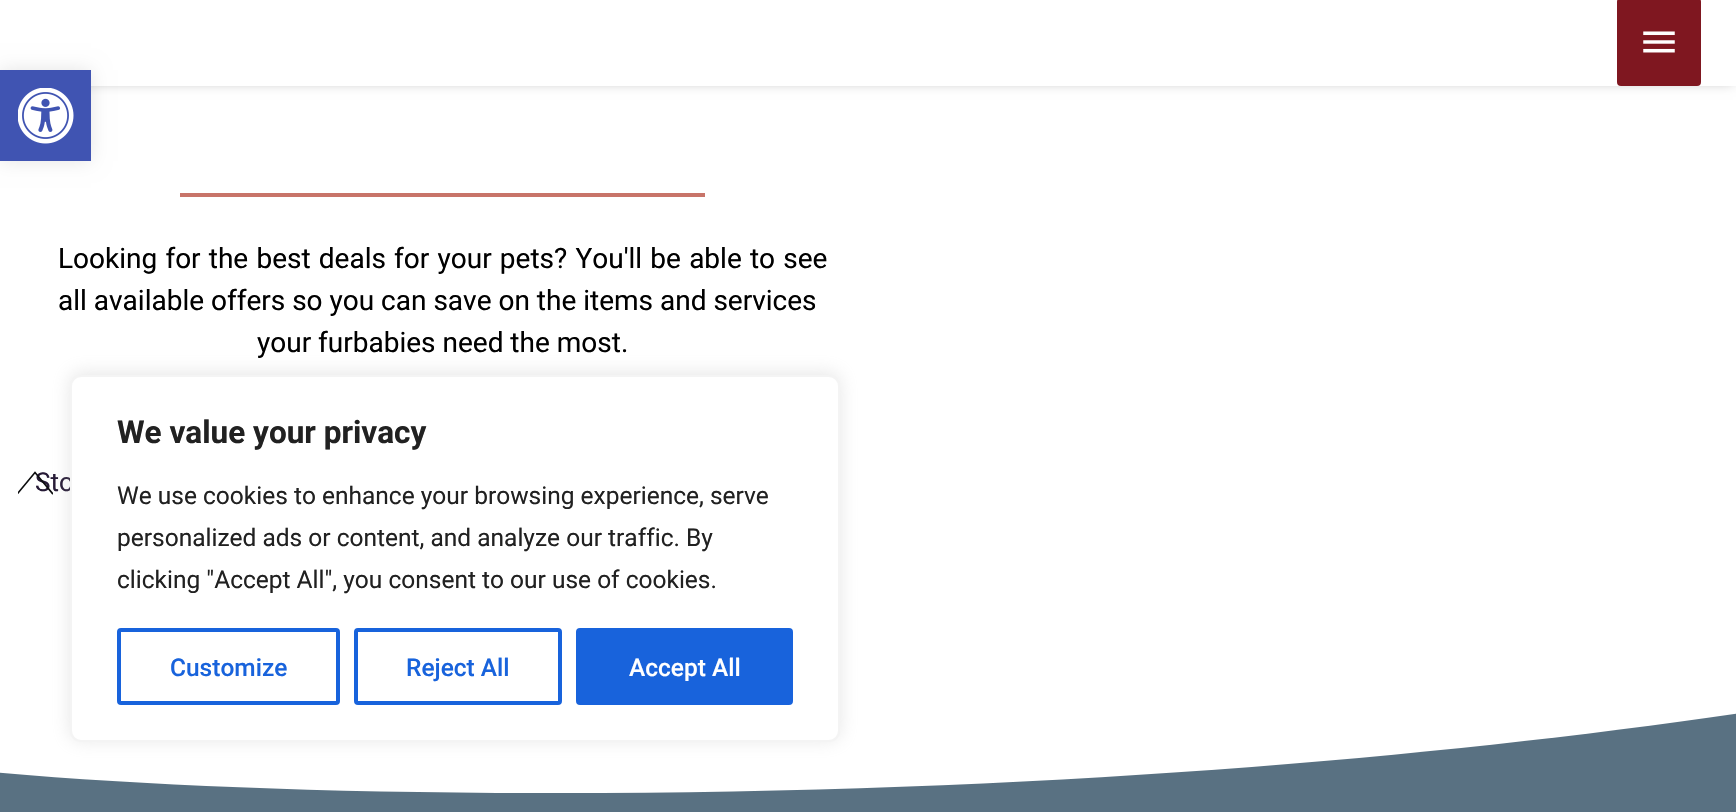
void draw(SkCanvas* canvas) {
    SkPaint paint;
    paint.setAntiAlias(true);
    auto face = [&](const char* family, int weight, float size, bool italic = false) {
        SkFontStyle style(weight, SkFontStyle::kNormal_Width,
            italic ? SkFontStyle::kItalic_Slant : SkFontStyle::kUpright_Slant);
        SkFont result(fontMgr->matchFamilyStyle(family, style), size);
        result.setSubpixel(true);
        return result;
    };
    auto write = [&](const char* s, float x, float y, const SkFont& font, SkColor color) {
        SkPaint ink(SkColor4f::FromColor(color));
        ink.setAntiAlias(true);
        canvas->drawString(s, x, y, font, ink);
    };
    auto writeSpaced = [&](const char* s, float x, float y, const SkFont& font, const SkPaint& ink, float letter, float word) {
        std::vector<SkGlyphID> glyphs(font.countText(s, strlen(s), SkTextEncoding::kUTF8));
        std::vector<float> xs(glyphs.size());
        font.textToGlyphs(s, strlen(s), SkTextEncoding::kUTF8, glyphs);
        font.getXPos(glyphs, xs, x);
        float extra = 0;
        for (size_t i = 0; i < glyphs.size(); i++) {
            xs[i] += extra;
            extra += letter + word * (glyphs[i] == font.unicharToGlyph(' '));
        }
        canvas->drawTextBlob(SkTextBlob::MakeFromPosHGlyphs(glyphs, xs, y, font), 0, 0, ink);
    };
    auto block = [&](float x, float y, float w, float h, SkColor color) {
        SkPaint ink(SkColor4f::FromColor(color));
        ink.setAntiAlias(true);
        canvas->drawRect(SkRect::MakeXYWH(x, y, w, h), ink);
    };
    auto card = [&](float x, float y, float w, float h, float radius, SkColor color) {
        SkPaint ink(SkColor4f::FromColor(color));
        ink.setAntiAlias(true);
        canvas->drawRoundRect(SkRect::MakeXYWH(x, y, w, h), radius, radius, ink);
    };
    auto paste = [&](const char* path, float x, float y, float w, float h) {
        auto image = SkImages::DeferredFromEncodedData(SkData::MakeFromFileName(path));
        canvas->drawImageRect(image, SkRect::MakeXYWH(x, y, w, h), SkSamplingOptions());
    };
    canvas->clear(SK_ColorWHITE);
    paint.setColor(SkColorSetARGB(26, 0, 0, 0));
    paint.setMaskFilter(SkMaskFilter::MakeBlur(kNormal_SkBlurStyle, 9));
    canvas->drawRect(SkRect::MakeXYWH(0, 70, 91, 91), paint);
    paint.setMaskFilter(nullptr);
    canvas->save();
    canvas->clipPath(SkPathBuilder(SkPathFillType::kEvenOdd).moveTo(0, 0).lineTo(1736, 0).lineTo(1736, 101).lineTo(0, 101).close().moveTo(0, -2).lineTo(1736, -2).lineTo(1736, 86).lineTo(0, 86).close().detach(), true);
    paint.setColor(SkColorSetARGB(77, 0, 0, 0));
    paint.setMaskFilter(SkMaskFilter::MakeBlur(kNormal_SkBlurStyle, 6));
    canvas->drawRect(SkRect::MakeXYWH(4, 2, 1729, 80), paint);
    paint.setMaskFilter(nullptr);
    canvas->restore();
    block(0, 70, 91, 91, SkColorSetRGB(64, 84, 178));
    paste("pic1.png", 18, 88, 56, 56);
    card(1617, -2, 84, 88, 4, SkColorSetRGB(127, 23, 32));
    paste("pic2.png", 1643, 31, 32, 22);
    block(180, 193, 525, 4, SkColorSetRGB(200, 116, 105));
    auto kFont1 = face("Roboto", 400, 28);
    paint.setColor(SK_ColorBLACK);
    writeSpaced("Looking for the best deals for your pets? You'll be able to see", 58, 268, kFont1, paint, 0, 1.25f);
    write("all available offers so you can save on the items and services", 58, 310, kFont1, SK_ColorBLACK);
    write("your furbabies need the most.", 257, 352, kFont1, SK_ColorBLACK);
    auto kFont2 = face("Roboto", 400, 26);
    write("Sto", 35, 491, kFont2, SkColorSetRGB(38, 26, 54));
    canvas->save();
    canvas->clipRect(SkRect::MakeXYWH(18, 462, 35, 42));
    paint.setStyle(SkPaint::kStroke_Style);
    paint.setStrokeWidth(1.6f);
    paint.setStrokeCap(SkPaint::kSquare_Cap);
    paint.setColor(SkColorSetRGB(12, 13, 14));
    canvas->drawPath(SkPathBuilder().moveTo(17.5f, 493.5f).lineTo(35, 472.5f).lineTo(52.5f, 493.5f).detach(), paint);
    canvas->restore();
    block(0, 713, 1736, 99, SkColorSetRGB(89, 113, 130));
    paint.setStyle(SkPaint::kFill_Style);
    paint.setColor(SK_ColorWHITE);
    canvas->drawPath(SkPathBuilder().moveTo(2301, 558).lineTo(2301, 574).cubicTo(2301, 617, 1613, 795, 538, 793).cubicTo(-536, 791, -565, 617, -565, 574).lineTo(-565, 558).close().detach(), paint);
    paint.setColor(SkColorSetARGB(77, 172, 171, 171));
    paint.setMaskFilter(SkMaskFilter::MakeBlur(kNormal_SkBlurStyle, 9));
    canvas->drawRoundRect(SkRect::MakeXYWH(70, 373, 770, 367), 11, 11, paint);
    paint.setMaskFilter(nullptr);
    paint.setColor(SK_ColorWHITE);
    canvas->drawRoundRect(SkRect::MakeXYWH(71, 376, 768, 365), 10, 10, paint);
    paint.setStyle(SkPaint::kStroke_Style);
    paint.setStrokeWidth(2);
    paint.setStrokeCap(SkPaint::kButt_Cap);
    paint.setColor(SkColorSetRGB(244, 244, 244));
    canvas->drawRoundRect(SkRect::MakeXYWH(71, 376, 768, 365), 10, 10, paint);
    auto kFont3 = face("Roboto", 700, 31.5f);
    write("We value your privacy", 117, 443, kFont3, SkColorSetRGB(33, 33, 33));
    auto kFont4 = face("Roboto", 400, 24.5f);
    write("We use cookies to enhance your browsing experience, serve", 117, 504, kFont4, SkColorSetRGB(33, 33, 33));
    write("personalized ads or content, and analyze our traffic. By", 117, 546, kFont4, SkColorSetRGB(33, 33, 33));
    write("clicking \"Accept All\", you consent to our use of cookies.", 117, 588, kFont4, SkColorSetRGB(33, 33, 33));
    paint.setStrokeWidth(4);
    paint.setColor(SkColorSetRGB(24, 99, 220));
    canvas->drawRoundRect(SkRect::MakeXYWH(119, 630, 219, 73), 2, 2, paint);
    auto kFont5 = face("Roboto", 500, 24.5f);
    write("Customize", 170, 676, kFont5, SkColorSetRGB(24, 99, 220));
    canvas->drawRoundRect(SkRect::MakeXYWH(356, 630, 204, 73), 2, 2, paint);
    write("Reject All", 406, 676, kFont5, SkColorSetRGB(24, 99, 220));
    paint.setStyle(SkPaint::kFill_Style);
    canvas->drawRoundRect(SkRect::MakeXYWH(578, 630, 213, 73), 2, 2, paint);
    paint.setStyle(SkPaint::kStroke_Style);
    canvas->drawRoundRect(SkRect::MakeXYWH(578, 630, 213, 73), 2, 2, paint);
    write("Accept All", 629, 676, kFont5, SK_ColorWHITE);
}
